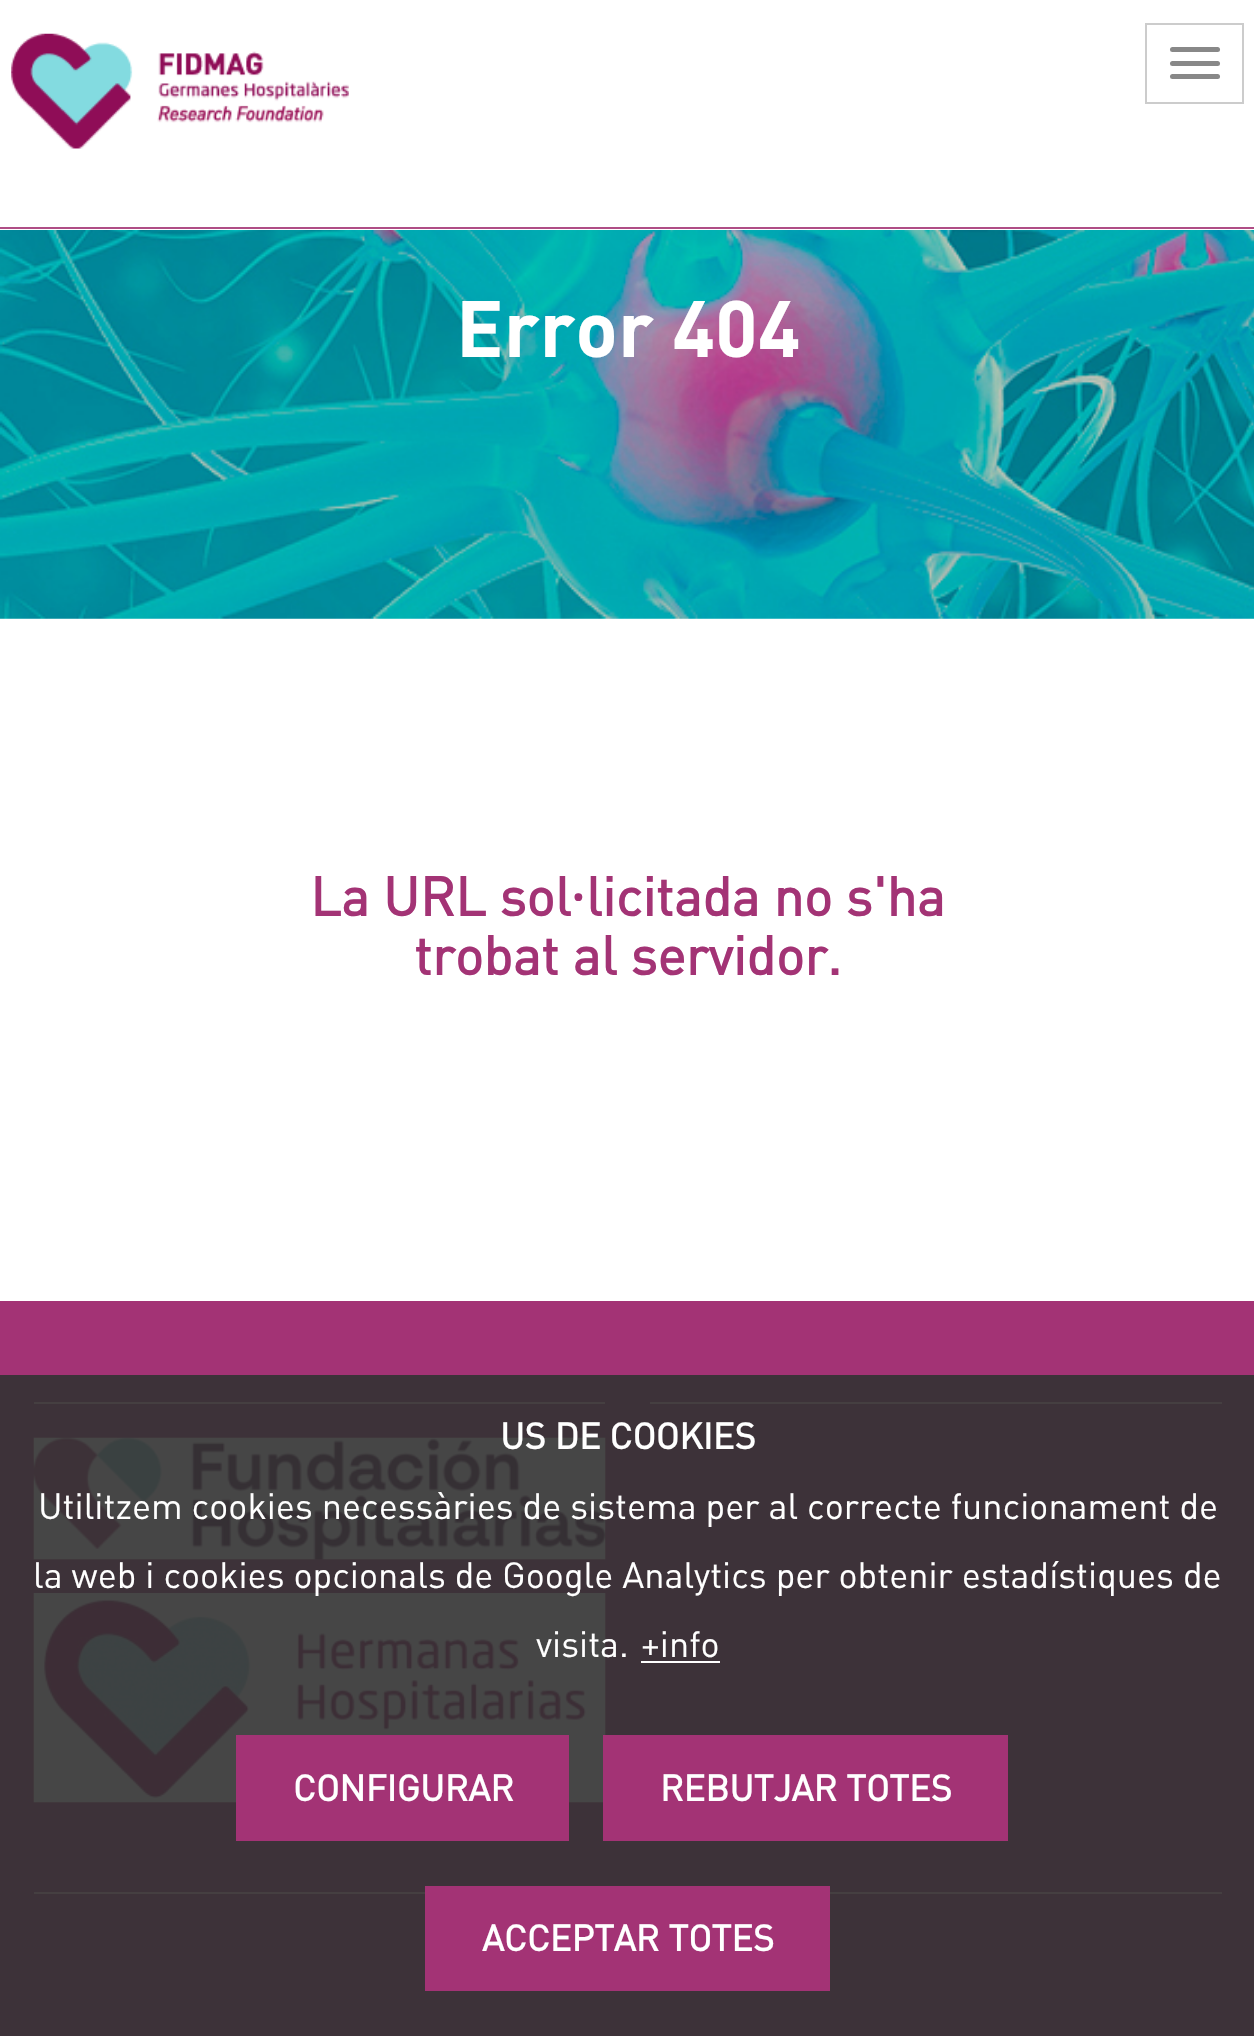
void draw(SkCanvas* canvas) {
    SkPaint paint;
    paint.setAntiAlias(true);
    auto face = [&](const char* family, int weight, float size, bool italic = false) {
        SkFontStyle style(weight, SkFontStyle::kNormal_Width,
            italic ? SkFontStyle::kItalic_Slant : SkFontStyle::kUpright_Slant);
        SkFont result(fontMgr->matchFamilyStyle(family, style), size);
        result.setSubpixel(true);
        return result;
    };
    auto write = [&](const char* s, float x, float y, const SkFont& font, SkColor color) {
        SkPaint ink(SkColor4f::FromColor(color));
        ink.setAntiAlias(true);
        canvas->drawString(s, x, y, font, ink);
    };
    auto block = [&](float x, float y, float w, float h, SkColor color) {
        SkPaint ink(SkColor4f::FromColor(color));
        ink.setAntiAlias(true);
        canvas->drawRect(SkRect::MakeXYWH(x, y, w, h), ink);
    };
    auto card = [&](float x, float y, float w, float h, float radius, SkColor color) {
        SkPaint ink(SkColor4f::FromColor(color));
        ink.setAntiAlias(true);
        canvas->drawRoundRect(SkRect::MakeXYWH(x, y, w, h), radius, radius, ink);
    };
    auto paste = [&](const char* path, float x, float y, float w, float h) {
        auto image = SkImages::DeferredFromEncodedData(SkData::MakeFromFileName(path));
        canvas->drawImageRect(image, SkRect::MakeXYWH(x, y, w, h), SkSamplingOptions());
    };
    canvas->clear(SK_ColorWHITE);
    block(0, 227, 1254, 2, SkColorSetRGB(175, 77, 134));
    paste("pic1.png", 11, 33, 338, 116);
    paint.setStyle(SkPaint::kStroke_Style);
    paint.setStrokeWidth(2);
    paint.setColor(SkColorSetRGB(204, 204, 204));
    canvas->drawRect(SkRect::MakeXYWH(1146, 24, 97, 79), paint);
    card(1170, 47, 50, 5, 2.5f, SkColorSetRGB(136, 136, 136));
    card(1170, 61, 50, 5, 2.5f, SkColorSetRGB(136, 136, 136));
    card(1170, 74, 50, 5, 2.5f, SkColorSetRGB(136, 136, 136));
    paste("pic2.png", 0, 230, 1254, 389);
    auto kFont1 = face("DIN", 700, 78.75f);
    write("Error 404", 456, 357, kFont1, SK_ColorWHITE);
    auto kFont2 = face("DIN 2", 700, 54);
    write("La URL sol", 310, 916, kFont2, SkColorSetRGB(163, 51, 117));
    auto kFont3 = face("Open Sans", 600, 54);
    write("·", 571, 916, kFont3, SkColorSetRGB(163, 51, 117));
    write("licitada no s'ha", 586, 916, kFont2, SkColorSetRGB(163, 51, 117));
    write("trobat al servidor.", 414, 975, kFont2, SkColorSetRGB(163, 51, 117));
    block(0, 1301, 1254, 735, SkColorSetRGB(163, 51, 117));
    block(34, 1402, 571, 2, SkColorSetRGB(236, 181, 195));
    paste("pic3.png", 33, 1437, 573, 123);
    paste("pic4.png", 33, 1593, 573, 210);
    block(650, 1402, 572, 2, SkColorSetRGB(236, 181, 195));
    block(34, 1892, 1188, 2, SkColorSetRGB(236, 181, 195));
    block(0, 1375, 1254, 661, SkColorSetARGB(230, 50, 50, 50));
    auto kFont4 = face("DIN 2", 700, 36);
    write("US DE COOKIES", 500, 1449, kFont4, SK_ColorWHITE);
    auto kFont5 = face("DIN", 400, 36);
    write("Utilitzem cookies necessàries de sistema per al correcte funcionament de", 38, 1519, kFont5, SK_ColorWHITE);
    write("la web i cookies opcionals de Google Analytics per obtenir estadístiques de", 33, 1588, kFont5, SK_ColorWHITE);
    write("visita.", 536, 1657, kFont5, SK_ColorWHITE);
    write("+info", 641, 1657, kFont5, SK_ColorWHITE);
    block(641, 1661, 79, 2, SK_ColorWHITE);
    block(236, 1735, 333, 106, SkColorSetRGB(163, 51, 117));
    write("CONFIGURAR", 293, 1801, kFont4, SK_ColorWHITE);
    block(603, 1735, 405, 106, SkColorSetRGB(163, 51, 117));
    write("REBUTJAR TOTES", 660, 1801, kFont4, SK_ColorWHITE);
    block(425, 1886, 405, 105, SkColorSetRGB(163, 51, 117));
    write("ACCEPTAR TOTES", 482, 1951, kFont4, SK_ColorWHITE);
}
